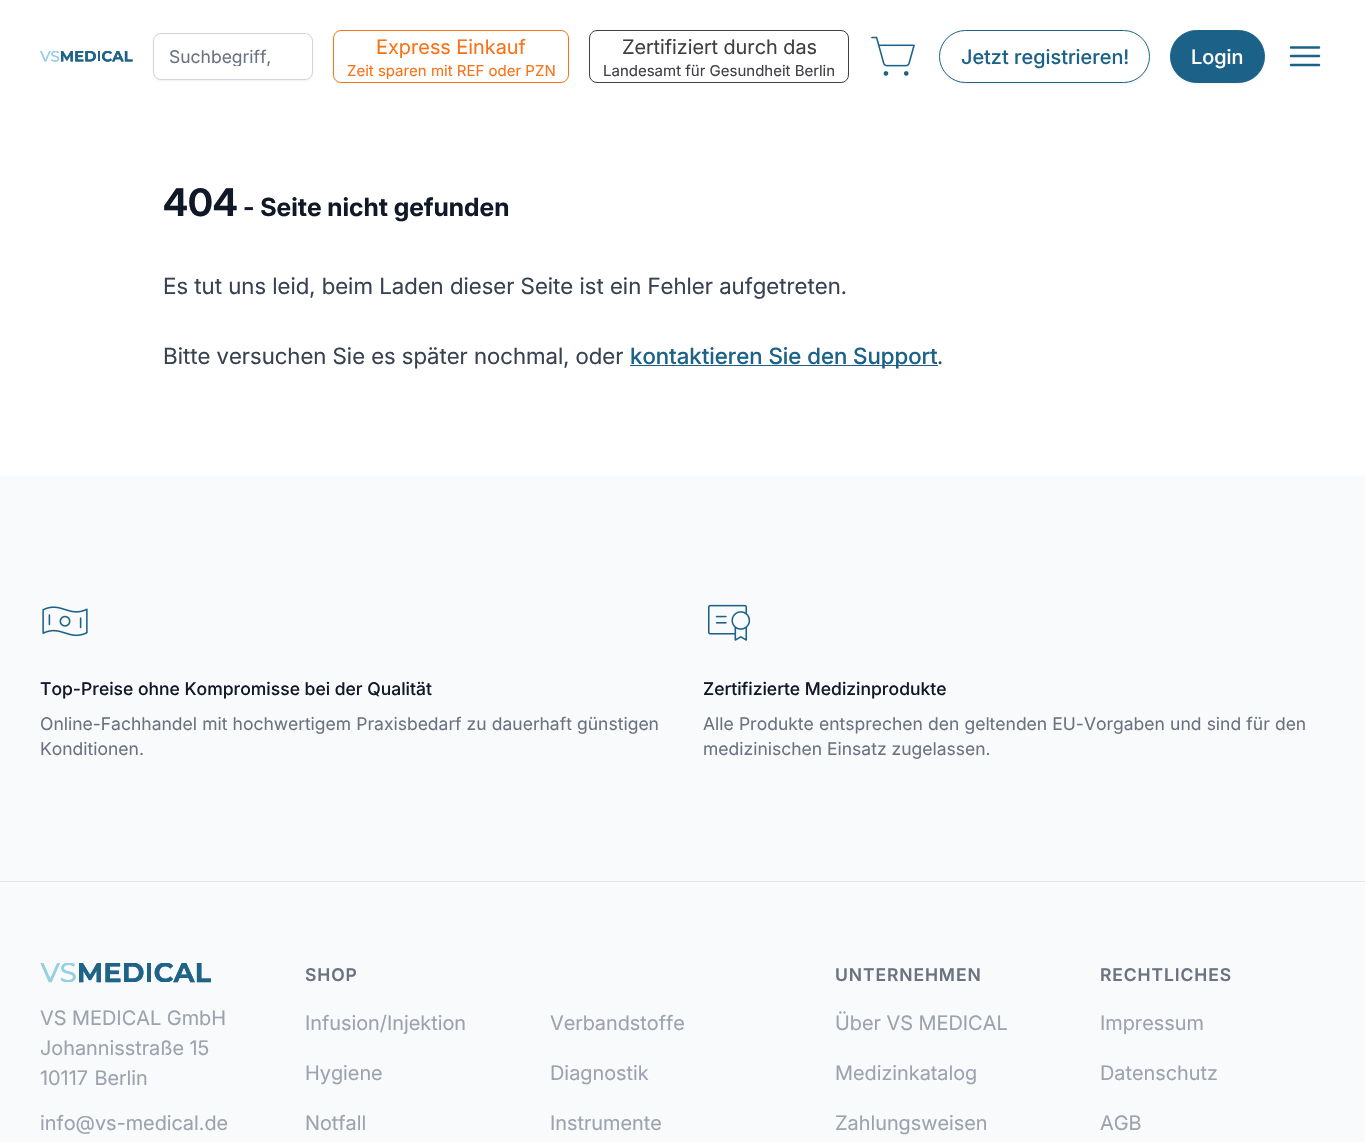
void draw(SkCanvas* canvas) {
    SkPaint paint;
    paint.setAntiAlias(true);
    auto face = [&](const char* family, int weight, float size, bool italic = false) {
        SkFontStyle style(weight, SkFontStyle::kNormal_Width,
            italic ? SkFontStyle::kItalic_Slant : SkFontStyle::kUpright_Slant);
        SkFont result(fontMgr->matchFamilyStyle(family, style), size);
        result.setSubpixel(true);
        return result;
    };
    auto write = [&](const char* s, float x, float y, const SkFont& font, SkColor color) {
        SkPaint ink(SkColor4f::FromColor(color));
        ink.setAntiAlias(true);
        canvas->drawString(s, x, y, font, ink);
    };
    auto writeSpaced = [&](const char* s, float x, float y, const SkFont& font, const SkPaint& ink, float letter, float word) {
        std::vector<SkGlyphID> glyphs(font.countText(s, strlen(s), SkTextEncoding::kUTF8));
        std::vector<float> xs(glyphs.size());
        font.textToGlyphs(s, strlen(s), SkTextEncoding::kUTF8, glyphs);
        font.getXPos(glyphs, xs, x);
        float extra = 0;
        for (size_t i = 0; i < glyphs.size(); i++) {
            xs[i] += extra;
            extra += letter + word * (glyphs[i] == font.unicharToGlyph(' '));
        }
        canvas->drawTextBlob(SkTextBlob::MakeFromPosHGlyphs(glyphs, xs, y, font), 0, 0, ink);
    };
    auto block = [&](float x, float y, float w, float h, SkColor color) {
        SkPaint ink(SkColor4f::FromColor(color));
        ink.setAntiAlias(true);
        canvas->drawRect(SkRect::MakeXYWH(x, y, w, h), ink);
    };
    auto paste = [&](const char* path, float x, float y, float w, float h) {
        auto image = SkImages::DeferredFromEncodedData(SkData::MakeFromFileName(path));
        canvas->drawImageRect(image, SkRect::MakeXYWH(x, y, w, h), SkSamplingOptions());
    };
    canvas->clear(SK_ColorWHITE);
    paste("pic1.png", 40, 51, 93, 11);
    paint.setColor(SkColorSetARGB(13, 0, 0, 0));
    paint.setMaskFilter(SkMaskFilter::MakeBlur(kNormal_SkBlurStyle, 1));
    canvas->drawRoundRect(SkRect::MakeXYWH(153, 34, 160, 47), 8, 8, paint);
    paint.setMaskFilter(nullptr);
    paint.setColor(SK_ColorWHITE);
    canvas->drawRoundRect(SkRect::MakeXYWH(153.5f, 33.5f, 159, 46), 7.5f, 7.5f, paint);
    paint.setStyle(SkPaint::kStroke_Style);
    paint.setStrokeWidth(1);
    paint.setColor(SkColorSetRGB(209, 213, 219));
    canvas->drawRoundRect(SkRect::MakeXYWH(153.5f, 33.5f, 159, 46), 7.5f, 7.5f, paint);
    canvas->save();
    canvas->clipRect(SkRect::MakeXYWH(169, 45, 110, 21));
    auto kFont1 = face("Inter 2", 400, 17.5f);
    write("Suchbegriff,", 169, 63, kFont1, SkColorSetRGB(107, 114, 128));
    canvas->restore();
    paint.setColor(SkColorSetRGB(249, 115, 22));
    canvas->drawRoundRect(SkRect::MakeXYWH(333.5f, 30.5f, 235, 52), 7.5f, 7.5f, paint);
    auto kFont2 = face("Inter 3", 400, 20);
    write("Express Einkauf", 376, 54, kFont2, SkColorSetRGB(249, 115, 22));
    auto kFont3 = face("Inter 2", 400, 15);
    write("Zeit sparen mit REF oder PZN", 347, 76, kFont3, SkColorSetRGB(249, 115, 22));
    paint.setColor(SkColorSetRGB(63, 63, 70));
    canvas->drawRoundRect(SkRect::MakeXYWH(589.5f, 30.5f, 259, 52), 7.5f, 7.5f, paint);
    write("Zertifiziert durch das", 622, 54, kFont2, SkColorSetRGB(63, 63, 70));
    write("Landesamt für Gesundheit Berlin", 603, 76, kFont3, SkColorSetRGB(63, 63, 70));
    paste("pic2.png", 871, 36, 44, 40);
    paint.setStyle(SkPaint::kFill_Style);
    paint.setColor(SkColorSetARGB(13, 0, 0, 0));
    paint.setMaskFilter(SkMaskFilter::MakeBlur(kNormal_SkBlurStyle, 1));
    canvas->drawRoundRect(SkRect::MakeXYWH(939, 31, 211, 53), 26.5f, 26.5f, paint);
    paint.setMaskFilter(nullptr);
    paint.setColor(SK_ColorWHITE);
    canvas->drawRoundRect(SkRect::MakeXYWH(939.5f, 30.5f, 210, 52), 26, 26, paint);
    paint.setStyle(SkPaint::kStroke_Style);
    paint.setColor(SkColorSetRGB(28, 98, 136));
    canvas->drawRoundRect(SkRect::MakeXYWH(939.5f, 30.5f, 210, 52), 26, 26, paint);
    auto kFont4 = face("Inter 3", 500, 20);
    write("Jetzt registrieren!", 961, 64, kFont4, SkColorSetRGB(28, 98, 136));
    paint.setStyle(SkPaint::kFill_Style);
    paint.setColor(SkColorSetARGB(13, 0, 0, 0));
    paint.setMaskFilter(SkMaskFilter::MakeBlur(kNormal_SkBlurStyle, 1));
    canvas->drawRoundRect(SkRect::MakeXYWH(1170, 31, 95, 53), 26.5f, 26.5f, paint);
    paint.setMaskFilter(nullptr);
    paint.setColor(SkColorSetRGB(28, 98, 136));
    canvas->drawRoundRect(SkRect::MakeXYWH(1170.5f, 30.5f, 94, 52), 26, 26, paint);
    paint.setStyle(SkPaint::kStroke_Style);
    canvas->drawRoundRect(SkRect::MakeXYWH(1170.5f, 30.5f, 94, 52), 26, 26, paint);
    write("Login", 1191, 64, kFont4, SK_ColorWHITE);
    paint.setStrokeWidth(2.5f);
    paint.setStrokeCap(SkPaint::kRound_Cap);
    paint.setStrokeJoin(SkPaint::kRound_Join);
    canvas->drawPath(SkPathBuilder().moveTo(1291, 47.5f).lineTo(1319, 47.5f).moveTo(1291, 56).lineTo(1319, 56).moveTo(1291, 65).lineTo(1319, 65).detach(), paint);
    auto kFont5 = face("Inter", 700, 38);
    write("404", 163, 216, kFont5, SkColorSetRGB(17, 24, 39));
    auto kFont6 = face("Inter 2", 700, 25);
    write("- Seite nicht gefunden", 243, 216, kFont6, SkColorSetRGB(17, 24, 39));
    auto kFont7 = face("Inter", 400, 22.5f);
    paint.setStyle(SkPaint::kFill_Style);
    paint.setColor(SkColorSetRGB(55, 65, 81));
    writeSpaced("Es tut uns leid, beim Laden dieser Seite ist ein Fehler aufgetreten.", 163, 294, kFont7, paint, 0, 0.1f);
    write("Bitte versuchen Sie es später nochmal, oder", 163, 364, kFont7, SkColorSetRGB(55, 65, 81));
    block(630, 365, 308, 1, SkColorSetRGB(28, 98, 136));
    auto kFont8 = face("Inter", 500, 22.5f);
    write("kontaktieren Sie den Support", 630, 364, kFont8, SkColorSetRGB(28, 98, 136));
    write(".", 937, 364, kFont7, SkColorSetRGB(55, 65, 81));
    block(0, 476, 1365, 666, SkColorSetRGB(249, 250, 251));
    block(0, 881, 1365, 1, SkColorSetRGB(229, 231, 235));
    paste("pic3.png", 42, 606, 46, 31);
    auto kFont9 = face("Inter 2", 500, 17.5f);
    write("Top-Preise ohne Kompromisse bei der Qualität", 40, 695, kFont9, SkColorSetRGB(17, 24, 39));
    paint.setColor(SkColorSetRGB(107, 114, 128));
    writeSpaced("Online-Fachhandel mit hochwertigem Praxisbedarf zu dauerhaft günstigen", 40, 730, kFont1, paint, 0, 0.25f);
    write("Konditionen.", 40, 755, kFont1, SkColorSetRGB(107, 114, 128));
    paste("pic4.png", 707, 604, 44, 37);
    write("Zertifizierte Medizinprodukte", 703, 695, kFont9, SkColorSetRGB(17, 24, 39));
    writeSpaced("Alle Produkte entsprechen den geltenden EU-Vorgaben und sind für den", 703, 730, kFont1, paint, 0, 0.25f);
    write("medizinischen Einsatz zugelassen.", 703, 755, kFont1, SkColorSetRGB(107, 114, 128));
    paste("pic5.png", 40, 963, 171, 20);
    write("VS MEDICAL GmbH", 40, 1025, kFont2, SkColorSetRGB(156, 163, 175));
    write("Johannisstraße 15", 40, 1055, kFont2, SkColorSetRGB(156, 163, 175));
    paint.setColor(SkColorSetRGB(156, 163, 175));
    writeSpaced("10117 Berlin", 40, 1085, kFont2, paint, 0, 1);
    write("info@vs-medical.de", 40, 1130, kFont2, SkColorSetRGB(156, 163, 175));
    auto kFont10 = face("Inter", 600, 17.5f);
    paint.setColor(SkColorSetRGB(107, 114, 128));
    writeSpaced("SHOP", 305, 981, kFont10, paint, 0.9f, 0);
    write("Infusion/Injektion", 305, 1030, kFont2, SkColorSetRGB(156, 163, 175));
    write("Verbandstoffe", 550, 1030, kFont2, SkColorSetRGB(156, 163, 175));
    write("Hygiene", 305, 1080, kFont2, SkColorSetRGB(156, 163, 175));
    write("Diagnostik", 550, 1080, kFont2, SkColorSetRGB(156, 163, 175));
    write("Notfall", 305, 1130, kFont2, SkColorSetRGB(156, 163, 175));
    write("Instrumente", 550, 1130, kFont2, SkColorSetRGB(156, 163, 175));
    writeSpaced("UNTERNEHMEN", 835, 981, kFont10, paint, 0.9f, 0);
    write("Über VS MEDICAL", 835, 1030, kFont2, SkColorSetRGB(156, 163, 175));
    write("Medizinkatalog", 835, 1080, kFont2, SkColorSetRGB(156, 163, 175));
    write("Zahlungsweisen", 835, 1130, kFont2, SkColorSetRGB(156, 163, 175));
    writeSpaced("RECHTLICHES", 1100, 981, kFont10, paint, 0.9f, 0);
    write("Impressum", 1100, 1030, kFont2, SkColorSetRGB(156, 163, 175));
    write("Datenschutz", 1100, 1080, kFont2, SkColorSetRGB(156, 163, 175));
    write("AGB", 1100, 1130, kFont2, SkColorSetRGB(156, 163, 175));
}
